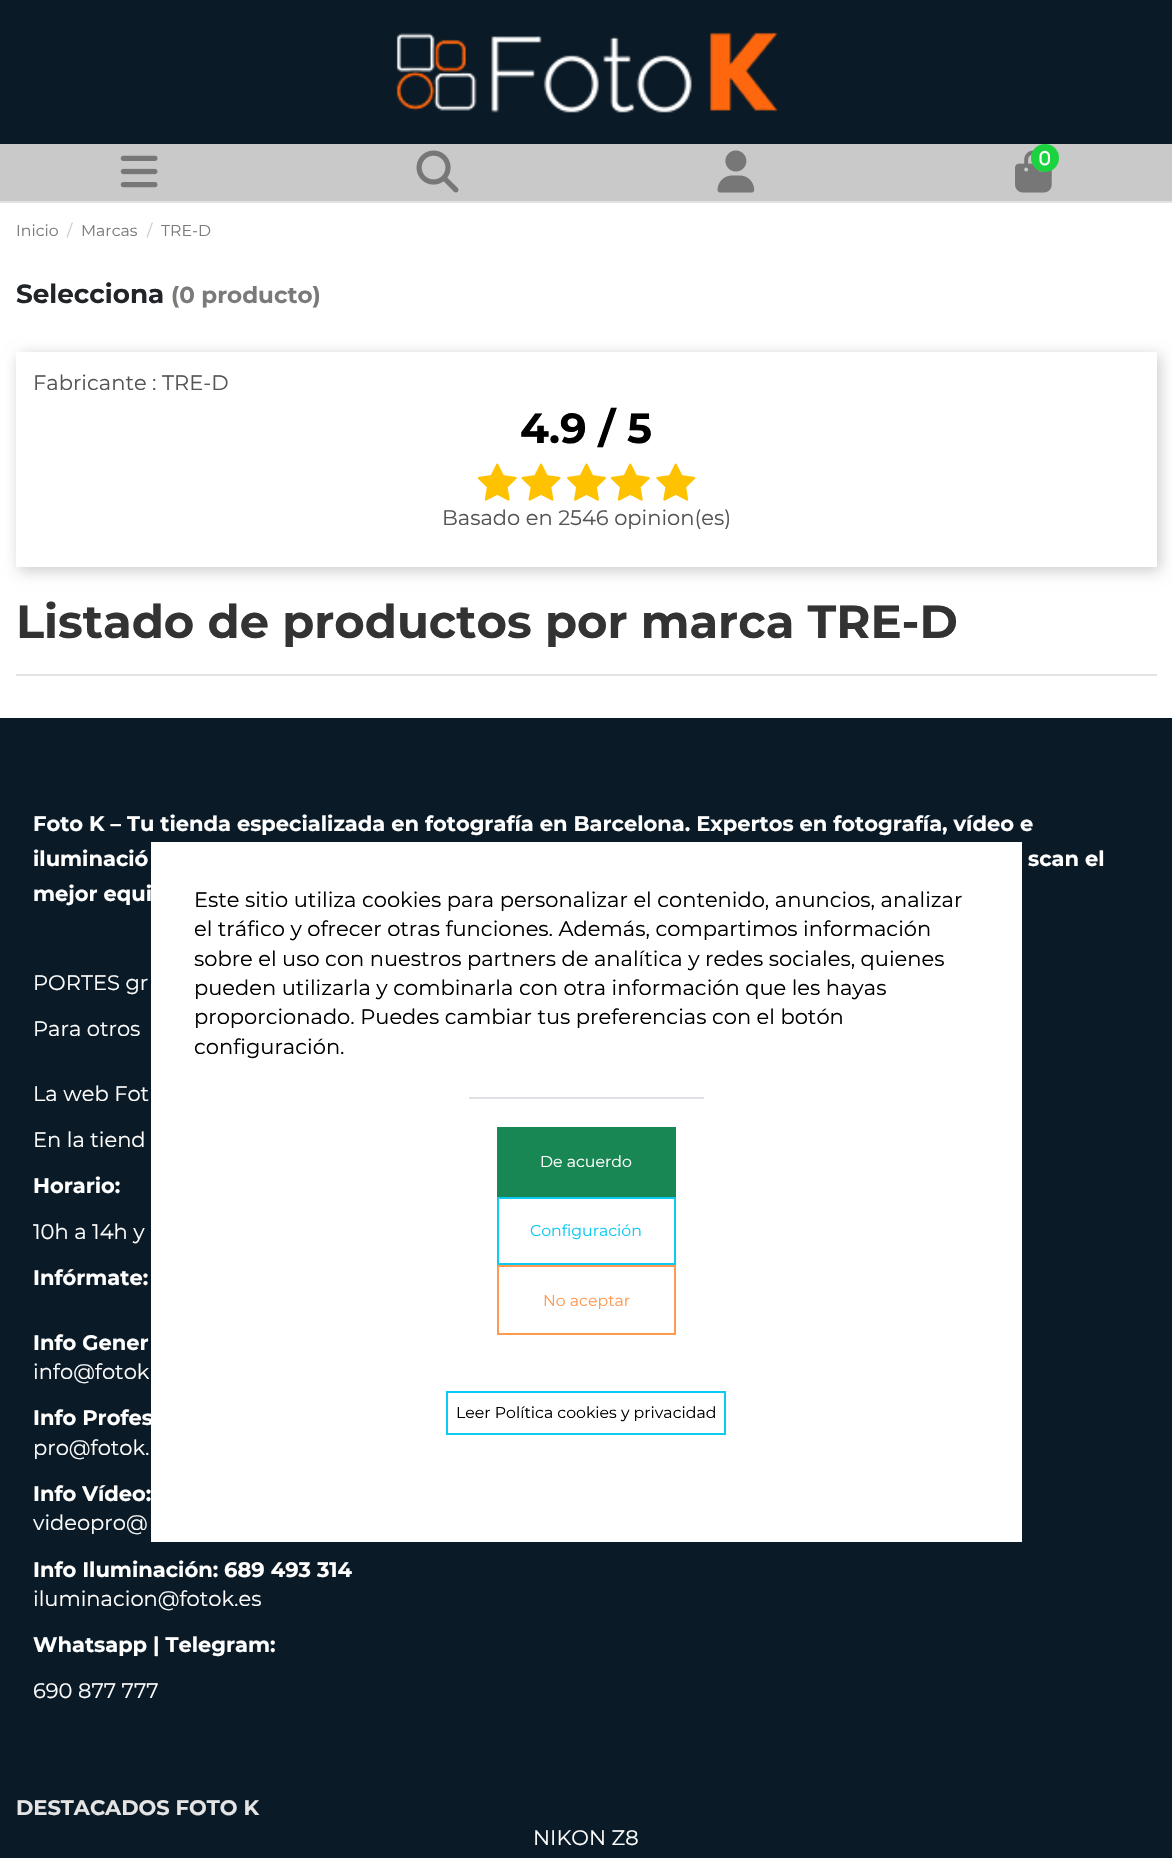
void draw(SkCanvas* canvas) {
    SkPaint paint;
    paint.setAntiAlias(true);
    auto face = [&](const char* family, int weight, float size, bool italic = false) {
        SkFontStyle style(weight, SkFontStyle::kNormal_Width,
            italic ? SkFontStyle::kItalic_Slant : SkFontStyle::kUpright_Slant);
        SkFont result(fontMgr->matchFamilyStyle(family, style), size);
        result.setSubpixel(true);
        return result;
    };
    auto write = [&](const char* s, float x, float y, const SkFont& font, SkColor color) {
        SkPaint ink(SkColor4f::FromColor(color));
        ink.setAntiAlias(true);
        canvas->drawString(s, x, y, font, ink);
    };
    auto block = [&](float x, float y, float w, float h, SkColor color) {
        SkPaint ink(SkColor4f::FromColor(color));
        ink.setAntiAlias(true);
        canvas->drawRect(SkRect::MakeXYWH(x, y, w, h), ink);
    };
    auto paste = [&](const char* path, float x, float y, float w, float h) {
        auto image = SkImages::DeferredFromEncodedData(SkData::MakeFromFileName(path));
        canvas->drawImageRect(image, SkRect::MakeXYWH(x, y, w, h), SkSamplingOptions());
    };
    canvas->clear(SK_ColorWHITE);
    block(0, 0, 1172, 144, SkColorSetRGB(10, 26, 38));
    block(0, 201, 1172, 2, SkColorSetRGB(227, 227, 227));
    paste("pic1.png", 396, 32, 382, 81);
    block(0, 144, 1172, 57, SkColorSetRGB(201, 201, 201));
    paste("pic2.png", 120, 155, 38, 33);
    paste("pic3.png", 416, 150, 43, 43);
    paste("pic4.png", 717, 150, 38, 43);
    paste("pic6.png", 1015, 150, 37, 43);
    paint.setColor(SkColorSetRGB(27, 211, 63));
    canvas->drawCircle(1045, 158, 14, paint);
    paste("pic5.png", 1039, 150, 11, 16);
    auto kFont1 = face("Montserrat", 400, 15.75f);
    write("Inicio", 16, 236, kFont1, SkColorSetRGB(122, 122, 122));
    write("/", 67, 236, kFont1, SkColorSetRGB(202, 202, 202));
    write("Marcas", 81, 236, kFont1, SkColorSetRGB(122, 122, 122));
    write("/", 147, 236, kFont1, SkColorSetRGB(202, 202, 202));
    write("TRE-D", 161, 236, kFont1, SkColorSetRGB(122, 122, 122));
    auto kFont2 = face("Montserrat", 700, 26.25f);
    write("Selecciona", 16, 303, kFont2, SkColorSetRGB(33, 37, 41));
    auto kFont3 = face("Montserrat", 700, 23);
    write("(0 producto)", 171, 303, kFont3, SkColorSetRGB(122, 122, 122));
    paint.setColor(SkColorSetARGB(51, 0, 0, 0));
    paint.setMaskFilter(SkMaskFilter::MakeBlur(kNormal_SkBlurStyle, 7));
    canvas->drawRect(SkRect::MakeXYWH(19, 355, 1141, 216), paint);
    paint.setMaskFilter(nullptr);
    block(16, 352, 1141, 215, SK_ColorWHITE);
    auto kFont4 = face("Montserrat", 400, 21);
    write("Fabricante : TRE-D", 33, 390, kFont4, SkColorSetRGB(84, 84, 84));
    auto kFont5 = face("Montserrat", 700, 42);
    write("4.9 / 5", 520, 443, kFont5, SK_ColorBLACK);
    paste("pic7.png", 477, 463, 40, 38);
    paste("pic8.png", 521, 463, 40, 38);
    paste("pic9.png", 567, 463, 39, 38);
    paste("pic7.png", 610, 463, 40, 38);
    paste("pic10.png", 656, 463, 40, 38);
    write("Basado en 2546 opinion(es)", 442, 525, kFont4, SkColorSetRGB(84, 84, 84));
    block(16, 674, 1141, 2, SkColorSetRGB(227, 227, 227));
    auto kFont6 = face("Montserrat", 700, 46.5f);
    write("Listado de productos por marca TRE-D", 16, 638, kFont6, SkColorSetRGB(51, 51, 51));
    block(0, 718, 1172, 1140, SkColorSetRGB(10, 26, 38));
    auto kFont7 = face("Montserrat", 700, 21);
    write("Foto K – Tu tienda especializada en fotografía en Barcelona. Expertos en fotografía, vídeo e", 33, 831, kFont7, SK_ColorWHITE);
    write("iluminació", 33, 866, kFont7, SK_ColorWHITE);
    write("scan el", 1028, 866, kFont7, SK_ColorWHITE);
    write("mejor equi", 33, 901, kFont7, SK_ColorWHITE);
    write("PORTES gr", 33, 990, kFont4, SK_ColorWHITE);
    write("Para otros", 33, 1036, kFont4, SK_ColorWHITE);
    write("La web Fot", 33, 1101, kFont4, SK_ColorWHITE);
    write("En la tiend", 33, 1147, kFont4, SK_ColorWHITE);
    write("Horario:", 33, 1193, kFont7, SK_ColorWHITE);
    write("10h a 14h y", 33, 1239, kFont4, SK_ColorWHITE);
    write("Infórmate:", 33, 1285, kFont7, SK_ColorWHITE);
    write("Info Gener", 33, 1350, kFont7, SK_ColorWHITE);
    write("info@fotok", 33, 1379, kFont4, SK_ColorWHITE);
    write("Info Profes", 33, 1425, kFont7, SK_ColorWHITE);
    write("pro@fotok.", 33, 1455, kFont4, SK_ColorWHITE);
    write("Info Vídeo:", 33, 1501, kFont7, SK_ColorWHITE);
    write("videopro@", 33, 1530, kFont4, SK_ColorWHITE);
    write("Info Iluminación: 689 493 314", 33, 1577, kFont7, SK_ColorWHITE);
    write("iluminacion@fotok.es", 33, 1606, kFont4, SK_ColorWHITE);
    write("Whatsapp | Telegram:", 33, 1652, kFont7, SK_ColorWHITE);
    write("690 877 777", 33, 1698, kFont4, SK_ColorWHITE);
    write("DESTACADOS FOTO K", 16, 1815, kFont7, SkColorSetRGB(229, 228, 228));
    write("NIKON Z8", 533, 1845, kFont4, SK_ColorWHITE);
    block(151, 842, 871, 700, SK_ColorWHITE);
    write("Este sitio utiliza cookies para personalizar el contenido, anuncios, analizar", 194, 907, kFont4, SK_ColorBLACK);
    write("el tráfico y ofrecer otras funciones. Además, compartimos información", 194, 936, kFont4, SK_ColorBLACK);
    write("sobre el uso con nuestros partners de analítica y redes sociales, quienes", 194, 966, kFont4, SK_ColorBLACK);
    write("pueden utilizarla y combinarla con otra información que les hayas", 194, 995, kFont4, SK_ColorBLACK);
    write("proporcionado. Puedes cambiar tus preferencias con el botón", 194, 1024, kFont4, SK_ColorBLACK);
    write("configuración.", 194, 1054, kFont4, SK_ColorBLACK);
    block(469, 1097, 235, 2, SkColorSetRGB(222, 226, 230));
    block(497, 1127, 179, 70, SkColorSetRGB(25, 135, 84));
    write("De acuerdo", 540, 1167, kFont1, SK_ColorWHITE);
    paint.setStyle(SkPaint::kStroke_Style);
    paint.setStrokeWidth(2);
    paint.setColor(SkColorSetRGB(13, 202, 240));
    canvas->drawRect(SkRect::MakeXYWH(498, 1198, 177, 66), paint);
    write("Configuración", 530, 1236, kFont1, SkColorSetRGB(13, 202, 240));
    paint.setColor(SkColorSetRGB(255, 154, 82));
    canvas->drawRect(SkRect::MakeXYWH(498, 1266, 177, 68), paint);
    write("No aceptar", 543, 1306, kFont1, SkColorSetRGB(255, 154, 82));
    paint.setColor(SkColorSetRGB(13, 202, 240));
    canvas->drawRect(SkRect::MakeXYWH(447, 1392, 278, 42), paint);
    write("Leer Política cookies y privacidad", 456, 1418, kFont1, SK_ColorBLACK);
}
